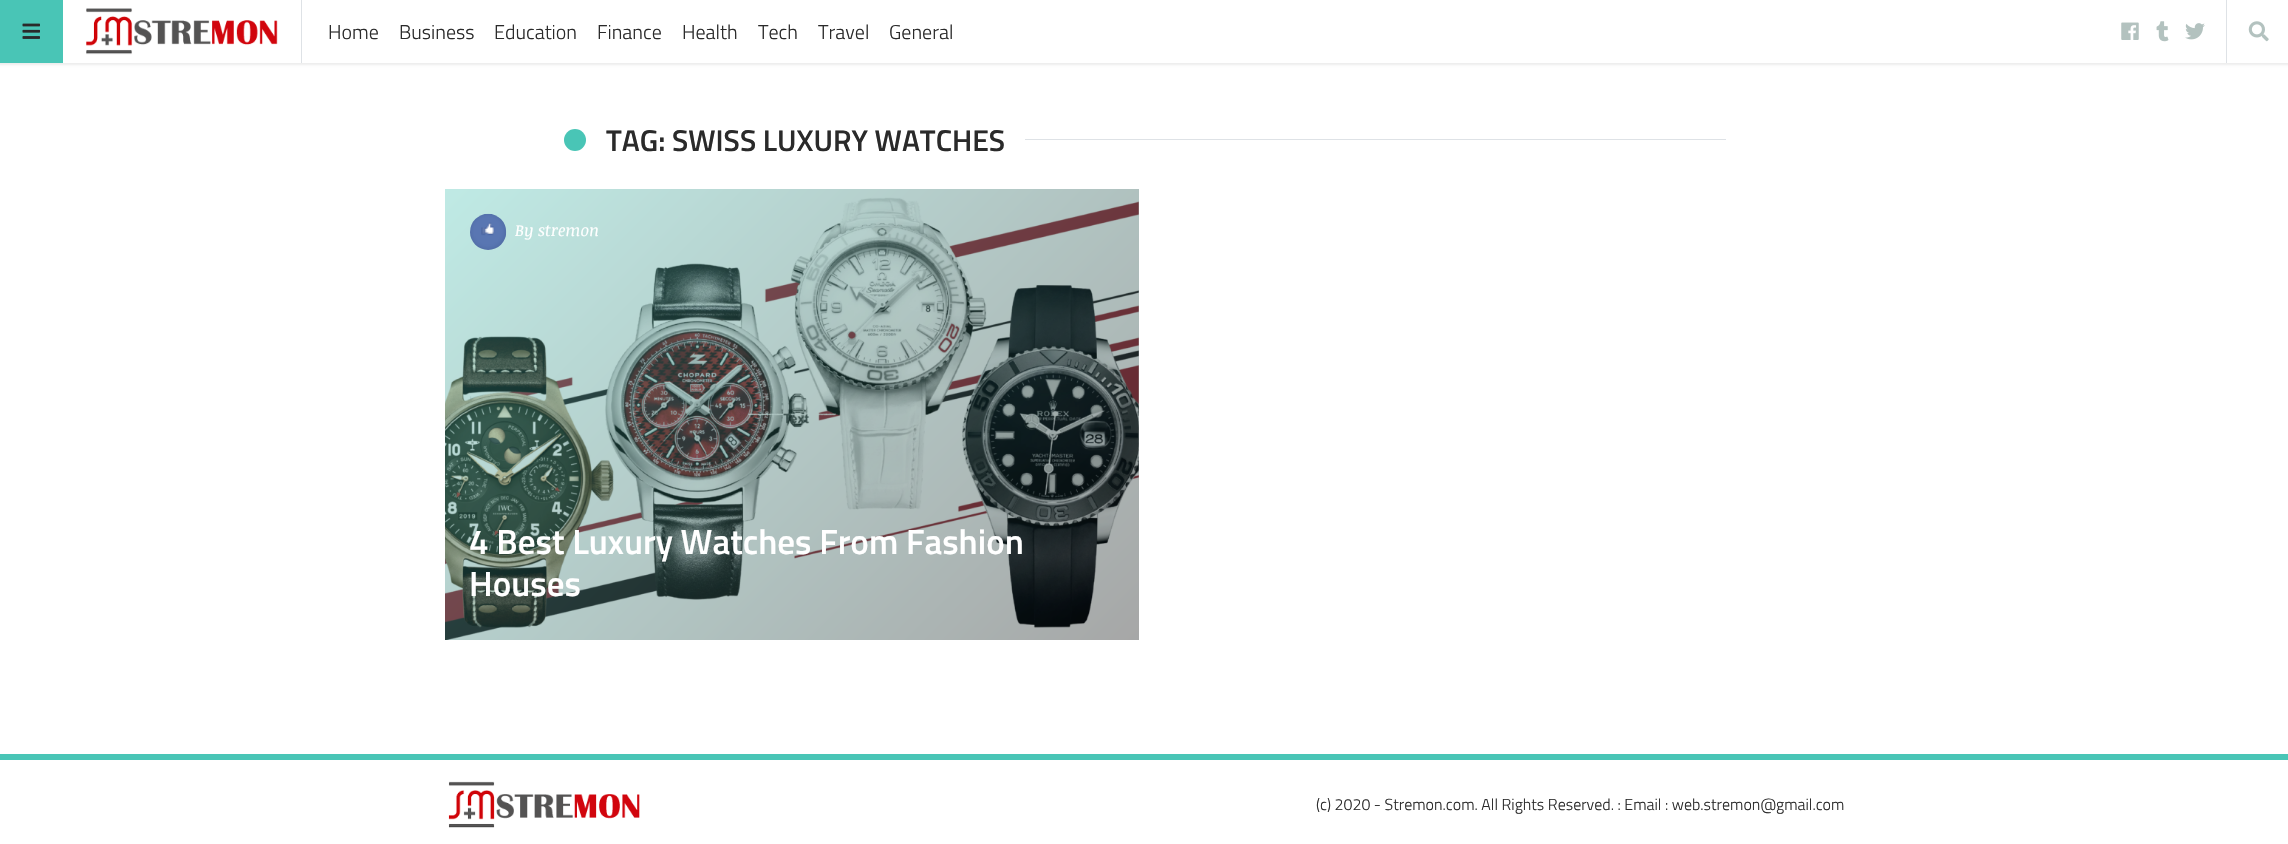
void draw(SkCanvas* canvas) {
    SkPaint paint;
    paint.setAntiAlias(true);
    auto face = [&](const char* family, int weight, float size, bool italic = false) {
        SkFontStyle style(weight, SkFontStyle::kNormal_Width,
            italic ? SkFontStyle::kItalic_Slant : SkFontStyle::kUpright_Slant);
        SkFont result(fontMgr->matchFamilyStyle(family, style), size);
        result.setSubpixel(true);
        return result;
    };
    auto write = [&](const char* s, float x, float y, const SkFont& font, SkColor color) {
        SkPaint ink(SkColor4f::FromColor(color));
        ink.setAntiAlias(true);
        canvas->drawString(s, x, y, font, ink);
    };
    auto block = [&](float x, float y, float w, float h, SkColor color) {
        SkPaint ink(SkColor4f::FromColor(color));
        ink.setAntiAlias(true);
        canvas->drawRect(SkRect::MakeXYWH(x, y, w, h), ink);
    };
    auto paste = [&](const char* path, float x, float y, float w, float h) {
        auto image = SkImages::DeferredFromEncodedData(SkData::MakeFromFileName(path));
        canvas->drawImageRect(image, SkRect::MakeXYWH(x, y, w, h), SkSamplingOptions());
    };
    canvas->clear(SK_ColorWHITE);
    paint.setColor(SkColorSetARGB(18, 0, 0, 0));
    paint.setMaskFilter(SkMaskFilter::MakeBlur(kNormal_SkBlurStyle, 1));
    canvas->drawRect(SkRect::MakeXYWH(-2, -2, 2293, 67), paint);
    paint.setMaskFilter(nullptr);
    block(63, 0, 2225, 63, SK_ColorWHITE);
    block(0, 0, 63, 63, SkColorSetRGB(73, 197, 182));
    paste("pic1.png", 22, 23, 18, 16);
    block(301, 0, 1, 63, SkColorSetRGB(222, 226, 230));
    paste("pic2.png", 86, 8, 192, 47);
    auto kFont1 = face("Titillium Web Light", 300, 20);
    write("Home", 328, 39, kFont1, SkColorSetRGB(42, 42, 42));
    write("Business", 399, 39, kFont1, SkColorSetRGB(42, 42, 42));
    write("Education", 494, 39, kFont1, SkColorSetRGB(42, 42, 42));
    write("Finance", 597, 39, kFont1, SkColorSetRGB(42, 42, 42));
    write("Health", 682, 39, kFont1, SkColorSetRGB(42, 42, 42));
    write("Tech", 758, 39, kFont1, SkColorSetRGB(42, 42, 42));
    write("Travel", 818, 39, kFont1, SkColorSetRGB(42, 42, 42));
    write("General", 889, 39, kFont1, SkColorSetRGB(42, 42, 42));
    paste("pic3.png", 2121, 22, 18, 18);
    paste("pic4.png", 2156, 21, 13, 21);
    paste("pic5.png", 2185, 23, 20, 17);
    block(2226, 0, 1, 63, SkColorSetRGB(222, 226, 230));
    paste("pic6.png", 2248, 21, 21, 21);
    paint.setColor(SkColorSetRGB(73, 197, 182));
    canvas->drawCircle(575, 140, 11, paint);
    auto kFont2 = face("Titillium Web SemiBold", 600, 30);
    write("TAG: SWISS LUXURY WATCHES", 606, 151, kFont2, SkColorSetRGB(42, 42, 42));
    block(1025, 139, 701, 1, SkColorSetRGB(222, 226, 230));
    paste("pic7.png", 445, 197, 694, 443);
    {
        const SkColor colors[] = {SkColorSetARGB(89, 0, 0, 0), SkColorSetARGB(89, 73, 197, 182)};
        const float stops[] = {0, 1};
        const SkPoint ends[] = {{1085, 708}, {498, 121}};
        paint.setShader(SkGradientShader::MakeLinear(ends, colors, stops, 2, SkTileMode::kClamp));
        paint.setAlpha(255);
    }
    canvas->drawRect(SkRect::MakeXYWH(445, 189, 694, 451), paint);
    paste("pic8.png", 470, 213, 37, 37);
    auto kFont3 = face("Noticia Text", 400, 16, true);
    write("By stremon", 515, 236, kFont3, SK_ColorWHITE);
    auto kFont4 = face("Titillium Web SemiBold", 600, 35);
    write("4 Best Luxury Watches From Fashion", 469, 554, kFont4, SK_ColorWHITE);
    write("Houses", 469, 596, kFont4, SK_ColorWHITE);
    block(0, 754, 2288, 6, SkColorSetRGB(73, 197, 182));
    paste("pic9.png", 448, 781, 192, 47);
    auto kFont5 = face("Titillium Web Light", 300, 16);
    write("(c) 2020 - Stremon.com. All Rights Reserved. : Email : web.stremon@gmail.com", 1316, 810, kFont5, SkColorSetRGB(42, 42, 42));
}
